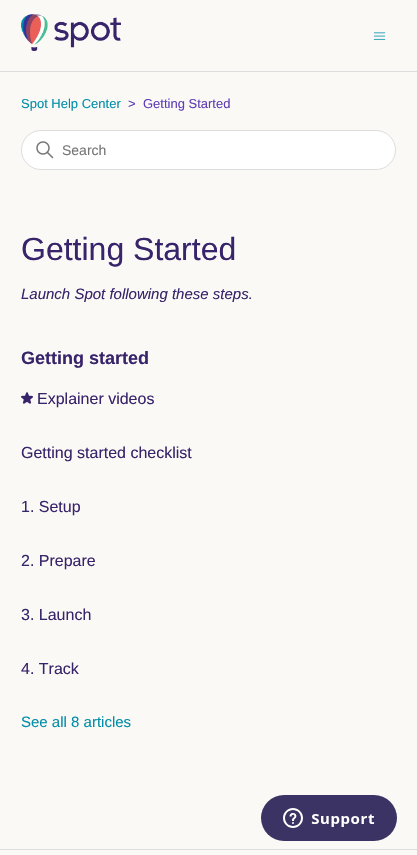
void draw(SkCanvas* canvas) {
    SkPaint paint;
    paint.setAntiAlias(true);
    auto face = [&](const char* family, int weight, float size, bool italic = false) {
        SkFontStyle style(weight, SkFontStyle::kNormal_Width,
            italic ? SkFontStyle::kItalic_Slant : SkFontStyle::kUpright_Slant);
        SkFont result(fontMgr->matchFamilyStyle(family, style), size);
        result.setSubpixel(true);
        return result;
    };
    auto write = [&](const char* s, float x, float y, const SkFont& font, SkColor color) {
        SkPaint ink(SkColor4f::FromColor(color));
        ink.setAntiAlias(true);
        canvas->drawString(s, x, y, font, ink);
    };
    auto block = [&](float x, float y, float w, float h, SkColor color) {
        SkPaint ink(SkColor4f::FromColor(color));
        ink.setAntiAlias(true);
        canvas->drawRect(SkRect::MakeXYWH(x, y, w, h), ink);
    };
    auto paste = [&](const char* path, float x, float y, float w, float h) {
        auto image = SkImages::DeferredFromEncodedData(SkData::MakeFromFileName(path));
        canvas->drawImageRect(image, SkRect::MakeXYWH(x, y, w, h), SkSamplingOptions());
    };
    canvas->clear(SkColorSetRGB(251, 249, 246));
    paste("pic1.png", 21, 14, 100, 37);
    paste("pic2.png", 373, 32, 13, 8);
    block(0, 71, 417, 1, SkColorSetRGB(221, 221, 221));
    auto kFont1 = face("Liberation Sans", 400, 13);
    write("Spot Help Center", 21, 108, kFont1, SkColorSetRGB(0, 142, 168));
    write(">", 128, 108, kFont1, SkColorSetRGB(95, 62, 182));
    write("Getting Started", 143, 108, kFont1, SkColorSetRGB(95, 62, 182));
    paint.setColor(SK_ColorWHITE);
    canvas->drawRoundRect(SkRect::MakeXYWH(21.5f, 130.5f, 374, 39), 19.5f, 19.5f, paint);
    paint.setStyle(SkPaint::kStroke_Style);
    paint.setStrokeWidth(1);
    paint.setColor(SkColorSetRGB(221, 221, 221));
    canvas->drawRoundRect(SkRect::MakeXYWH(21.5f, 130.5f, 374, 39), 19.5f, 19.5f, paint);
    paste("pic3.png", 36, 141, 18, 18);
    auto kFont2 = face("Liberation Sans", 400, 14);
    write("Search", 62, 155, kFont2, SkColorSetRGB(117, 117, 117));
    auto kFont3 = face("Liberation Sans", 400, 32);
    write("Getting Started", 21, 260, kFont3, SkColorSetRGB(55, 36, 106));
    auto kFont4 = face("Liberation Sans", 400, 15, true);
    write("Launch Spot following these steps.", 21, 299, kFont4, SkColorSetRGB(55, 36, 106));
    auto kFont5 = face("Liberation Sans", 700, 18);
    write("Getting started", 21, 364, kFont5, SkColorSetRGB(55, 36, 106));
    paste("pic4.png", 21, 392, 12, 12);
    auto kFont6 = face("Liberation Sans", 400, 16);
    write("Explainer videos", 37, 404, kFont6, SkColorSetRGB(55, 36, 106));
    write("Getting started checklist", 21, 458, kFont6, SkColorSetRGB(55, 36, 106));
    write("1. Setup", 21, 512, kFont6, SkColorSetRGB(55, 36, 106));
    write("2. Prepare", 21, 566, kFont6, SkColorSetRGB(55, 36, 106));
    write("3. Launch", 21, 620, kFont6, SkColorSetRGB(55, 36, 106));
    write("4. Track", 21, 674, kFont6, SkColorSetRGB(55, 36, 106));
    auto kFont7 = face("Liberation Sans", 400, 15);
    write("See all 8 articles", 21, 727, kFont7, SkColorSetRGB(0, 142, 168));
    paste("pic5.png", 261, 795, 136, 46);
    block(0, 849, 417, 1, SkColorSetRGB(221, 221, 221));
}
